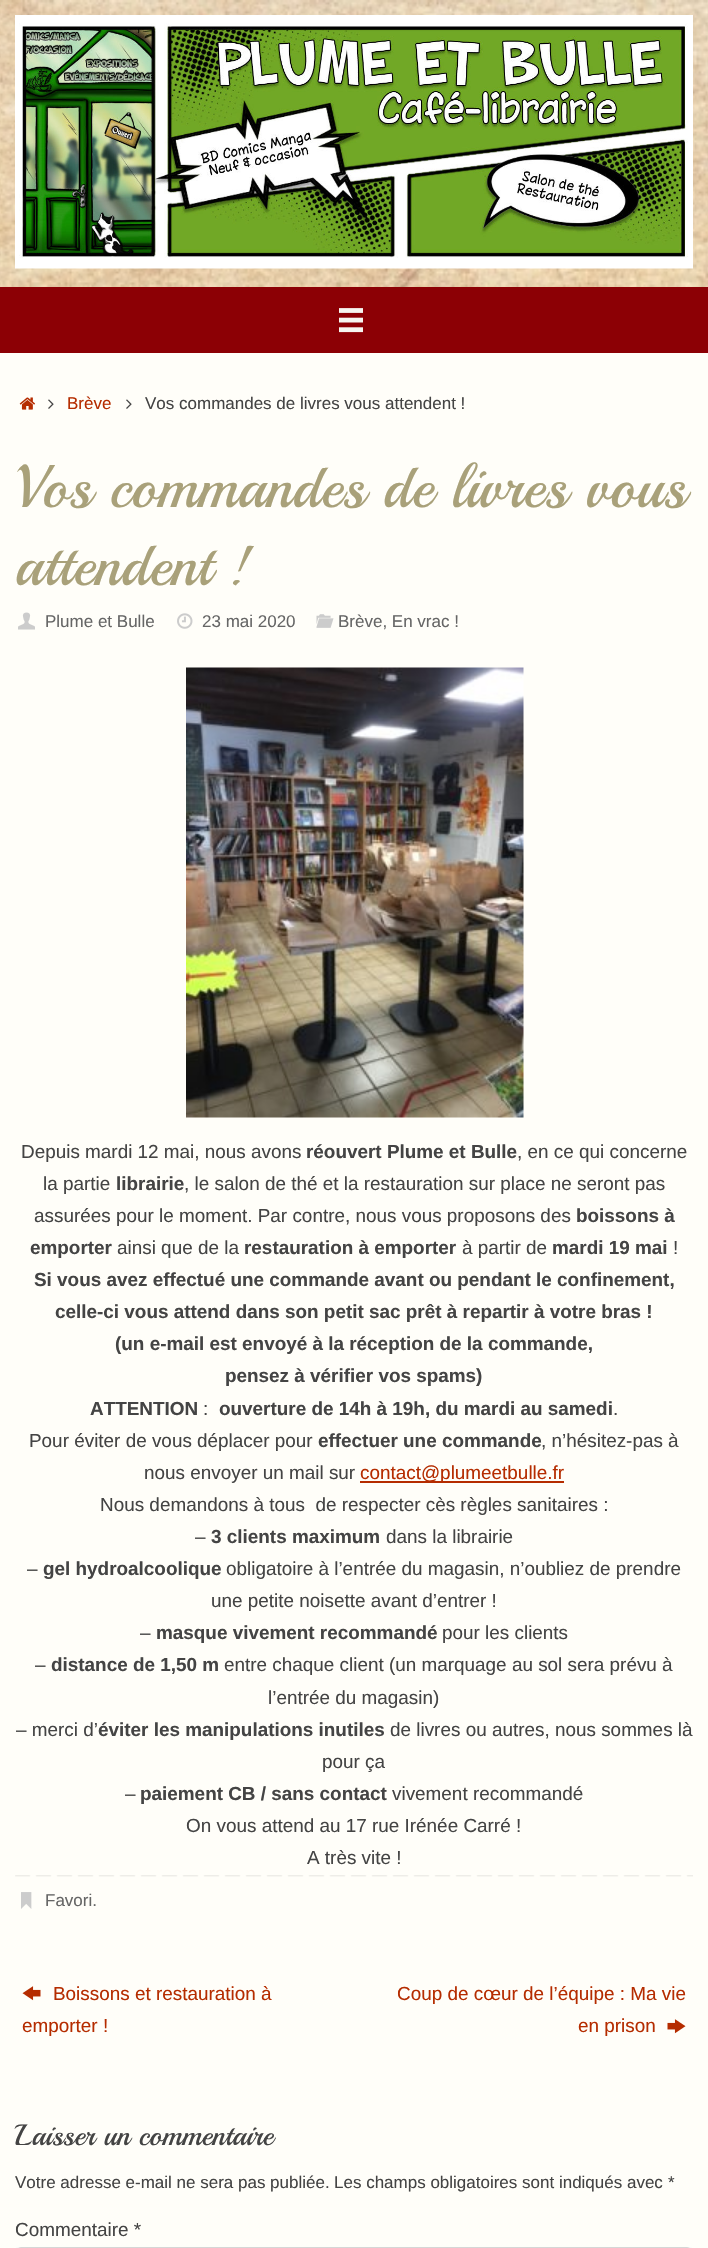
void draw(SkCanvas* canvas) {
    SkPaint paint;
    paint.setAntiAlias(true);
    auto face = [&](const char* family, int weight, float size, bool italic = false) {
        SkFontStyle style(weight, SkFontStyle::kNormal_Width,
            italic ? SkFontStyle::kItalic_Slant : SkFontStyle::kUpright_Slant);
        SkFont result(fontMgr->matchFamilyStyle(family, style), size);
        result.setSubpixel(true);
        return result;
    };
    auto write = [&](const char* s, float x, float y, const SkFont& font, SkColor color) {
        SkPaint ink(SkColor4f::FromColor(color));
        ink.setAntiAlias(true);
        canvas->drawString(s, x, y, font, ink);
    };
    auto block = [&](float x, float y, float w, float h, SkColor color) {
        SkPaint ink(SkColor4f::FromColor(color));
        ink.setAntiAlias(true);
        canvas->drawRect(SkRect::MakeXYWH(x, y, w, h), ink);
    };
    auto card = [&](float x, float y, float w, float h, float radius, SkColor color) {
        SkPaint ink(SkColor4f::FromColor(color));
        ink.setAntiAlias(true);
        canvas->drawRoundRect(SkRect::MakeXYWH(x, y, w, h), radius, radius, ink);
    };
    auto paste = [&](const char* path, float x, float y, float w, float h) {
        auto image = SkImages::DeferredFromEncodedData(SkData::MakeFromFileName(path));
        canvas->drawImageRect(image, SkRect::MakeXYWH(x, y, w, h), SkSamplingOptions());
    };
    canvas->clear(SK_ColorWHITE);
    paste("pic1.png", 0, 0, 708, 287);
    paste("pic2.png", 15, 15, 678, 254);
    block(0, 287, 708, 66, SkColorSetRGB(140, 0, 5));
    paste("pic3.png", 339, 308, 24, 25);
    block(0, 353, 708, 1895, SkColorSetRGB(255, 254, 249));
    paste("pic4.png", 19, 397, 16, 13);
    paste("pic5.png", 48, 399, 6, 10);
    auto kFont1 = face("Liberation Sans", 400, 17);
    write("Brève", 67, 409, kFont1, SkColorSetRGB(181, 44, 0));
    paste("pic5.png", 126, 399, 6, 10);
    write("Vos commandes de livres vous attendent !", 145, 409, kFont1, SkColorSetRGB(68, 68, 68));
    auto kFont2 = face("Playball", 400, 60);
    write("Vos commandes de livres vous", 15, 507, kFont2, SkColorSetRGB(169, 161, 122));
    write("attendent !", 15, 585, kFont2, SkColorSetRGB(169, 161, 122));
    paste("pic6.png", 18, 612, 17, 18);
    write("Plume et Bulle", 45, 627, kFont1, SkColorSetRGB(102, 102, 102));
    paste("pic7.png", 177, 613, 16, 16);
    write("23 mai 2020", 202, 627, kFont1, SkColorSetRGB(102, 102, 102));
    paste("pic8.png", 316, 614, 18, 14);
    write("Brève, En vrac !", 338, 627, kFont1, SkColorSetRGB(102, 102, 102));
    paste("pic9.png", 186, 667, 338, 451);
    auto kFont3 = face("Liberation Sans", 400, 18.9f);
    write("Depuis mardi 12 mai, nous avons", 21, 1158, kFont3, SkColorSetRGB(68, 68, 68));
    auto kFont4 = face("Liberation Sans", 700, 18.9f);
    write("réouvert Plume et Bulle", 306, 1158, kFont4, SkColorSetRGB(68, 68, 68));
    write(", en ce qui concerne", 517, 1158, kFont3, SkColorSetRGB(68, 68, 68));
    write("la partie", 43, 1190, kFont3, SkColorSetRGB(68, 68, 68));
    write("librairie", 116, 1190, kFont4, SkColorSetRGB(68, 68, 68));
    write(", le salon de thé et la restauration sur place ne seront pas", 184, 1190, kFont3, SkColorSetRGB(68, 68, 68));
    write("assurées pour le moment. Par contre, nous vous proposons des", 34, 1222, kFont3, SkColorSetRGB(68, 68, 68));
    write("boissons à", 576, 1222, kFont4, SkColorSetRGB(68, 68, 68));
    write("emporter", 30, 1254, kFont4, SkColorSetRGB(68, 68, 68));
    write("ainsi que de la", 117, 1254, kFont3, SkColorSetRGB(68, 68, 68));
    write("restauration à emporter", 244, 1254, kFont4, SkColorSetRGB(68, 68, 68));
    write("à partir de", 462, 1254, kFont3, SkColorSetRGB(68, 68, 68));
    write("mardi 19 mai", 552, 1254, kFont4, SkColorSetRGB(68, 68, 68));
    write("!", 673, 1254, kFont3, SkColorSetRGB(68, 68, 68));
    write("Si vous avez effectué une commande avant ou pendant le confinement,", 34, 1286, kFont4, SkColorSetRGB(68, 68, 68));
    write("celle-ci vous attend dans son petit sac prêt à repartir à votre bras !", 55, 1318, kFont4, SkColorSetRGB(68, 68, 68));
    write("(un e-mail est envoyé à la réception de la commande,", 115, 1350, kFont4, SkColorSetRGB(68, 68, 68));
    write("pensez à vérifier vos spams)", 225, 1382, kFont4, SkColorSetRGB(68, 68, 68));
    write("ATTENTION", 90, 1415, kFont4, SkColorSetRGB(68, 68, 68));
    write(":", 203, 1415, kFont3, SkColorSetRGB(68, 68, 68));
    write("ouverture de 14h à 19h, du mardi au samedi", 219, 1415, kFont4, SkColorSetRGB(68, 68, 68));
    write(".", 613, 1415, kFont3, SkColorSetRGB(68, 68, 68));
    write("Pour éviter de vous déplacer pour", 29, 1447, kFont3, SkColorSetRGB(68, 68, 68));
    write("effectuer une commande", 318, 1447, kFont4, SkColorSetRGB(68, 68, 68));
    write(", n’hésitez-pas à", 541, 1447, kFont3, SkColorSetRGB(68, 68, 68));
    write("nous envoyer un mail sur", 144, 1479, kFont3, SkColorSetRGB(68, 68, 68));
    block(360, 1481, 204, 2, SkColorSetRGB(181, 44, 0));
    write("contact@plumeetbulle.fr", 360, 1479, kFont3, SkColorSetRGB(181, 44, 0));
    write("Nous demandons à tous  de respecter cès règles sanitaires :", 100, 1511, kFont3, SkColorSetRGB(68, 68, 68));
    write("–", 195, 1543, kFont3, SkColorSetRGB(68, 68, 68));
    write("3 clients maximum", 211, 1543, kFont4, SkColorSetRGB(68, 68, 68));
    write("dans la librairie", 386, 1543, kFont3, SkColorSetRGB(68, 68, 68));
    write("–", 27, 1575, kFont3, SkColorSetRGB(68, 68, 68));
    write("gel hydroalcoolique", 43, 1575, kFont4, SkColorSetRGB(68, 68, 68));
    write("obligatoire à l’entrée du magasin, n’oubliez de prendre", 226, 1575, kFont3, SkColorSetRGB(68, 68, 68));
    write("une petite noisette avant d’entrer !", 211, 1607, kFont3, SkColorSetRGB(68, 68, 68));
    write("–", 140, 1639, kFont3, SkColorSetRGB(68, 68, 68));
    write("masque vivement recommandé", 156, 1639, kFont4, SkColorSetRGB(68, 68, 68));
    write("pour les clients", 442, 1639, kFont3, SkColorSetRGB(68, 68, 68));
    write("–", 35, 1671, kFont3, SkColorSetRGB(68, 68, 68));
    write("distance de 1,50 m", 51, 1671, kFont4, SkColorSetRGB(68, 68, 68));
    write("entre chaque client (un marquage au sol sera prévu à", 224, 1671, kFont3, SkColorSetRGB(68, 68, 68));
    write("l’entrée du magasin)", 268, 1704, kFont3, SkColorSetRGB(68, 68, 68));
    write("– merci d’", 16, 1736, kFont3, SkColorSetRGB(68, 68, 68));
    write("éviter les manipulations inutiles", 98, 1736, kFont4, SkColorSetRGB(68, 68, 68));
    write("de livres ou autres, nous sommes là", 390, 1736, kFont3, SkColorSetRGB(68, 68, 68));
    write("pour ça", 322, 1768, kFont3, SkColorSetRGB(68, 68, 68));
    write("–", 125, 1800, kFont3, SkColorSetRGB(68, 68, 68));
    write("paiement CB / sans contact", 140, 1800, kFont4, SkColorSetRGB(68, 68, 68));
    write("vivement recommandé", 392, 1800, kFont3, SkColorSetRGB(68, 68, 68));
    write("On vous attend au 17 rue Irénée Carré !", 186, 1832, kFont3, SkColorSetRGB(68, 68, 68));
    write("A très vite !", 307, 1864, kFont3, SkColorSetRGB(68, 68, 68));
    paste("pic10.png", 15, 1875, 678, 2);
    paste("pic11.png", 21, 1892, 11, 17);
    write("Favori.", 45, 1906, kFont1, SkColorSetRGB(102, 102, 102));
    paste("pic12.png", 22, 1986, 19, 15);
    write("Boissons et restauration à", 53, 2000, kFont3, SkColorSetRGB(181, 44, 0));
    write("emporter !", 22, 2032, kFont3, SkColorSetRGB(181, 44, 0));
    write("Coup de cœur de l’équipe : Ma vie", 397, 2000, kFont3, SkColorSetRGB(181, 44, 0));
    write("en prison", 578, 2032, kFont3, SkColorSetRGB(181, 44, 0));
    paste("pic13.png", 667, 2019, 19, 15);
    auto kFont5 = face("Playball", 400, 29.5f);
    write("Laisser un commentaire", 15, 2145, kFont5, SkColorSetRGB(68, 68, 68));
    write("Votre adresse e-mail ne sera pas publiée.", 15, 2188, kFont1, SkColorSetRGB(68, 68, 68));
    write("Les champs obligatoires sont indiqués avec", 334, 2188, kFont1, SkColorSetRGB(68, 68, 68));
    write("*", 668, 2188, kFont1, SkColorSetRGB(68, 68, 68));
    write("Commentaire *", 15, 2236, kFont3, SkColorSetRGB(68, 68, 68));
    card(15, 2247, 678, 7, 6, SkColorSetRGB(247, 247, 247));
    paint.setStyle(SkPaint::kStroke_Style);
    paint.setStrokeWidth(1.5f);
    paint.setColor(SkColorSetRGB(204, 204, 204));
    canvas->drawPath(SkPathBuilder().moveTo(17.5f, 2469.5f).cubicTo(16.5f, 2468.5f, 16, 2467.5f, 16, 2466).lineTo(16, 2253).cubicTo(16, 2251.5f, 16.5f, 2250.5f, 17.5f, 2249.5f).cubicTo(18.5f, 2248.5f, 19.5f, 2248, 21, 2248).lineTo(687, 2248).cubicTo(688.5f, 2248, 689.5f, 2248.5f, 690.5f, 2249.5f).detach(), paint);
}
